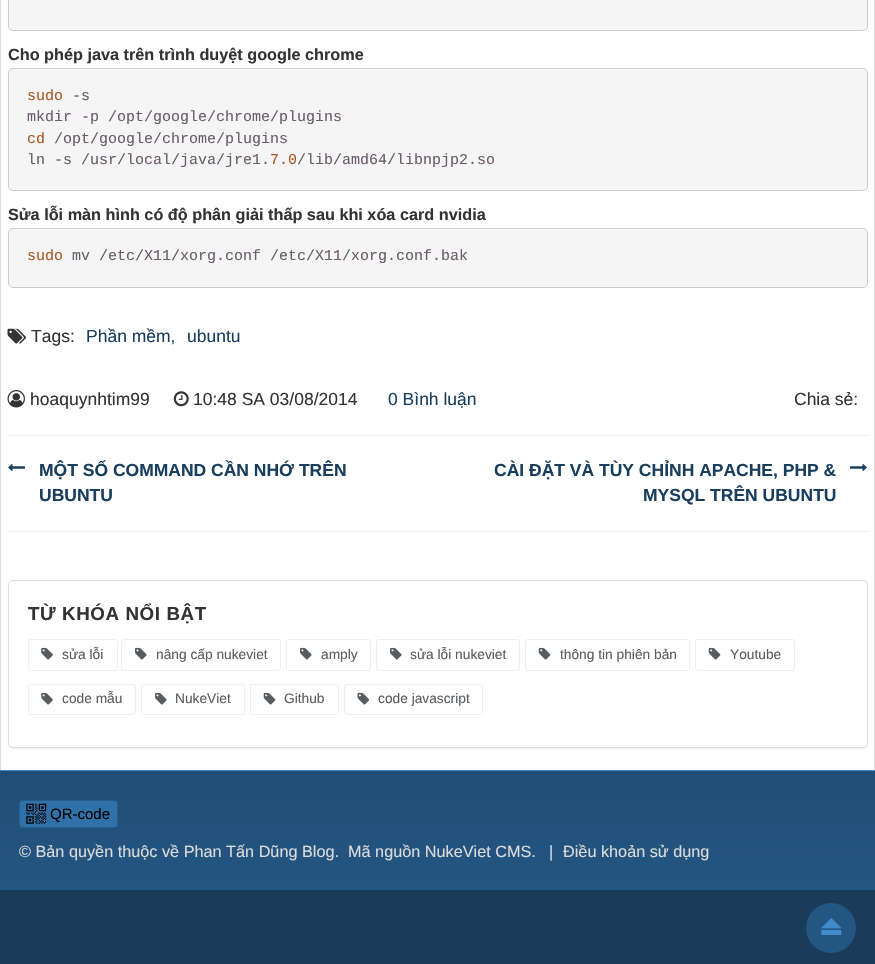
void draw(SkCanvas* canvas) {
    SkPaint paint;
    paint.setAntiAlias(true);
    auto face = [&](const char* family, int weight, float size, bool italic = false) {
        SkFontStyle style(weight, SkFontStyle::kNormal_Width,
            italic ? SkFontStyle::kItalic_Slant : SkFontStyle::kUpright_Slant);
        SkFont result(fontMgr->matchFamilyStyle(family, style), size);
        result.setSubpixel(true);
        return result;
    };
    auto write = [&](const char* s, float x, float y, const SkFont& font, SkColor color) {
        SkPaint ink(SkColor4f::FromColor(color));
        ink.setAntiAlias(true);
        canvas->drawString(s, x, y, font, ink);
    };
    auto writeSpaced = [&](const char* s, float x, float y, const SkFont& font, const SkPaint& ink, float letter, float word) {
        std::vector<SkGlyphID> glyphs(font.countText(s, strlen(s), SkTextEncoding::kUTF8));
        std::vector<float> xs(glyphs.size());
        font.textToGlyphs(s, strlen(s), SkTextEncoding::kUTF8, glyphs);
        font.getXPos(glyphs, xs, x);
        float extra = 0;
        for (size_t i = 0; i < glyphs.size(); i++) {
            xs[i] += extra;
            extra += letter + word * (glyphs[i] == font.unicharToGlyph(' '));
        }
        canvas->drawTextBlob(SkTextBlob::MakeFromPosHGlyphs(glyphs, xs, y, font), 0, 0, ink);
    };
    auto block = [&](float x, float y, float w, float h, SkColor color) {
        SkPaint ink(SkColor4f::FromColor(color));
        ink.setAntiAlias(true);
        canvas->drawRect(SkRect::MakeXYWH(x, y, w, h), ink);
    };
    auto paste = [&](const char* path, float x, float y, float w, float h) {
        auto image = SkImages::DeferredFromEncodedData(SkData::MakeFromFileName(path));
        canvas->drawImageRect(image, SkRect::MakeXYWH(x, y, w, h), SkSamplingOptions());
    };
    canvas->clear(SK_ColorWHITE);
    block(874, 0, 1, 770, SkColorSetRGB(220, 220, 220));
    block(0, 0, 1, 770, SkColorSetRGB(220, 220, 220));
    paint.setColor(SkColorSetRGB(245, 245, 245));
    canvas->drawRoundRect(SkRect::MakeXYWH(8.5f, -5.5f, 859, 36), 4.5f, 4.5f, paint);
    paint.setStyle(SkPaint::kStroke_Style);
    paint.setStrokeWidth(1);
    paint.setColor(SkColorSetRGB(204, 204, 204));
    canvas->drawRoundRect(SkRect::MakeXYWH(8.5f, -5.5f, 859, 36), 4.5f, 4.5f, paint);
    auto kFont1 = face("Liberation Sans", 700, 16.25f);
    write("Cho phép java trên trình duyệt google chrome", 8, 60, kFont1, SkColorSetRGB(51, 51, 51));
    paint.setStyle(SkPaint::kFill_Style);
    paint.setColor(SkColorSetRGB(245, 245, 245));
    canvas->drawRoundRect(SkRect::MakeXYWH(8.5f, 68.5f, 859, 122), 4.5f, 4.5f, paint);
    paint.setStyle(SkPaint::kStroke_Style);
    paint.setColor(SkColorSetRGB(204, 204, 204));
    canvas->drawRoundRect(SkRect::MakeXYWH(8.5f, 68.5f, 859, 122), 4.5f, 4.5f, paint);
    auto kFont2 = face("Liberation Mono", 400, 15);
    write("sudo", 27, 100, kFont2, SkColorSetRGB(166, 89, 38));
    write("-s", 72, 100, kFont2, SkColorSetRGB(105, 93, 105));
    write("mkdir -p /opt/google/chrome/plugins", 27, 121, kFont2, SkColorSetRGB(105, 93, 105));
    write("cd", 27, 143, kFont2, SkColorSetRGB(166, 89, 38));
    write("/opt/google/chrome/plugins", 54, 143, kFont2, SkColorSetRGB(105, 93, 105));
    write("ln -s /usr/local/java/jre1.", 27, 164, kFont2, SkColorSetRGB(105, 93, 105));
    write("7.0", 270, 164, kFont2, SkColorSetRGB(166, 89, 38));
    write("/lib/amd64/libnpjp2.so", 297, 164, kFont2, SkColorSetRGB(105, 93, 105));
    write("Sửa lỗi màn hình có độ phân giải thấp sau khi xóa card nvidia", 8, 220, kFont1, SkColorSetRGB(51, 51, 51));
    paint.setStyle(SkPaint::kFill_Style);
    paint.setColor(SkColorSetRGB(245, 245, 245));
    canvas->drawRoundRect(SkRect::MakeXYWH(8.5f, 228.5f, 859, 59), 4.5f, 4.5f, paint);
    paint.setStyle(SkPaint::kStroke_Style);
    paint.setColor(SkColorSetRGB(204, 204, 204));
    canvas->drawRoundRect(SkRect::MakeXYWH(8.5f, 228.5f, 859, 59), 4.5f, 4.5f, paint);
    write("sudo", 27, 260, kFont2, SkColorSetRGB(166, 89, 38));
    write("mv /etc/X11/xorg.conf /etc/X11/xorg.conf.bak", 72, 260, kFont2, SkColorSetRGB(105, 93, 105));
    paste("pic1.png", 7, 328, 19, 16);
    auto kFont3 = face("Liberation Sans", 400, 17.5f);
    write("Tags:", 31, 342, kFont3, SkColorSetRGB(51, 51, 51));
    write("Phần mềm,", 86, 342, kFont3, SkColorSetRGB(26, 63, 94));
    write("ubuntu", 187, 342, kFont3, SkColorSetRGB(26, 63, 94));
    paste("pic2.png", 7, 390, 18, 18);
    write("hoaquynhtim99", 30, 405, kFont3, SkColorSetRGB(51, 51, 51));
    paste("pic3.png", 173, 391, 16, 16);
    write("10:48 SA 03/08/2014", 193, 405, kFont3, SkColorSetRGB(51, 51, 51));
    write("0 Bình luận", 388, 405, kFont3, SkColorSetRGB(26, 63, 94));
    write("Chia sẻ:", 794, 405, kFont3, SkColorSetRGB(51, 51, 51));
    block(8, 435, 860, 1, SkColorSetRGB(238, 238, 238));
    paste("pic4.png", 8, 463, 17, 9);
    auto kFont4 = face("Liberation Sans", 700, 17.5f);
    write("MỘT SỐ COMMAND CẦN NHỚ TRÊN", 39, 476, kFont4, SkColorSetRGB(26, 63, 94));
    write("UBUNTU", 39, 501, kFont4, SkColorSetRGB(26, 63, 94));
    write("CÀI ĐẶT VÀ TÙY CHỈNH APACHE, PHP &", 494, 476, kFont4, SkColorSetRGB(26, 63, 94));
    paste("pic5.png", 850, 463, 17, 9);
    write("MYSQL TRÊN UBUNTU", 643, 501, kFont4, SkColorSetRGB(26, 63, 94));
    block(8, 531, 860, 1, SkColorSetRGB(238, 238, 238));
    paint.setStyle(SkPaint::kFill_Style);
    paint.setColor(SkColorSetARGB(13, 0, 0, 0));
    paint.setMaskFilter(SkMaskFilter::MakeBlur(kNormal_SkBlurStyle, 0.5f));
    canvas->drawRoundRect(SkRect::MakeXYWH(8, 581, 860, 168), 5, 5, paint);
    paint.setMaskFilter(nullptr);
    paint.setColor(SK_ColorWHITE);
    canvas->drawRoundRect(SkRect::MakeXYWH(8.5f, 580.5f, 859, 167), 4.5f, 4.5f, paint);
    paint.setStyle(SkPaint::kStroke_Style);
    paint.setColor(SkColorSetRGB(221, 221, 221));
    canvas->drawRoundRect(SkRect::MakeXYWH(8.5f, 580.5f, 859, 167), 4.5f, 4.5f, paint);
    auto kFont5 = face("Liberation Sans", 700, 18.75f);
    paint.setStyle(SkPaint::kFill_Style);
    paint.setColor(SkColorSetRGB(51, 51, 51));
    writeSpaced("TỪ KHÓA NỔI BẬT", 28, 620, kFont5, paint, 0.6f, 0);
    paint.setStyle(SkPaint::kStroke_Style);
    paint.setColor(SkColorSetRGB(238, 238, 238));
    canvas->drawRoundRect(SkRect::MakeXYWH(28.5f, 639.5f, 89, 31), 2, 2, paint);
    paste("pic6.png", 41, 647, 12, 13);
    auto kFont6 = face("Liberation Sans", 400, 13.75f);
    write("sửa lỗi", 62, 659, kFont6, SkColorSetRGB(89, 92, 95));
    canvas->drawRoundRect(SkRect::MakeXYWH(121.5f, 639.5f, 159, 31), 2, 2, paint);
    paste("pic7.png", 135, 647, 12, 13);
    write("nâng cấp nukeviet", 156, 659, kFont6, SkColorSetRGB(89, 92, 95));
    canvas->drawRoundRect(SkRect::MakeXYWH(286.5f, 639.5f, 84, 31), 2, 2, paint);
    paste("pic7.png", 300, 647, 12, 13);
    write("amply", 321, 659, kFont6, SkColorSetRGB(89, 92, 95));
    canvas->drawRoundRect(SkRect::MakeXYWH(376.5f, 639.5f, 143, 31), 2, 2, paint);
    paste("pic7.png", 390, 647, 12, 13);
    write("sửa lỗi nukeviet", 410, 659, kFont6, SkColorSetRGB(89, 92, 95));
    canvas->drawRoundRect(SkRect::MakeXYWH(525.5f, 639.5f, 164, 31), 2, 2, paint);
    paste("pic8.png", 538, 647, 13, 13);
    write("thông tin phiên bản", 560, 659, kFont6, SkColorSetRGB(89, 92, 95));
    canvas->drawRoundRect(SkRect::MakeXYWH(695.5f, 639.5f, 99, 31), 2, 2, paint);
    paste("pic8.png", 708, 647, 13, 13);
    write("Youtube", 730, 659, kFont6, SkColorSetRGB(89, 92, 95));
    canvas->drawRoundRect(SkRect::MakeXYWH(28.5f, 684.5f, 107, 30), 2, 2, paint);
    paste("pic6.png", 41, 692, 12, 13);
    write("code mẫu", 62, 703, kFont6, SkColorSetRGB(89, 92, 95));
    canvas->drawRoundRect(SkRect::MakeXYWH(141.5f, 684.5f, 103, 30), 2, 2, paint);
    paste("pic7.png", 155, 692, 12, 13);
    write("NukeViet", 175, 703, kFont6, SkColorSetRGB(89, 92, 95));
    canvas->drawRoundRect(SkRect::MakeXYWH(250.5f, 684.5f, 88, 30), 2, 2, paint);
    paste("pic8.png", 263, 692, 13, 13);
    write("Github", 284, 703, kFont6, SkColorSetRGB(89, 92, 95));
    canvas->drawRoundRect(SkRect::MakeXYWH(344.5f, 684.5f, 138, 30), 2, 2, paint);
    paste("pic9.png", 357, 692, 13, 13);
    write("code javascript", 378, 703, kFont6, SkColorSetRGB(89, 92, 95));
    paint.setStyle(SkPaint::kFill_Style);
    {
        const SkColor colors[] = {SkColorSetRGB(32, 77, 117), SkColorSetRGB(36, 86, 130)};
        const float stops[] = {0, 1};
        const SkPoint ends[] = {{438, 771}, {438, 889}};
        paint.setShader(SkGradientShader::MakeLinear(ends, colors, stops, 2, SkTileMode::kClamp));
        paint.setAlpha(255);
    }
    canvas->drawRect(SkRect::MakeXYWH(0, 771, 875, 118), paint);
    block(0, 770, 875, 1, SkColorSetRGB(66, 139, 202));
    block(0, 889, 875, 1, SkColorSetRGB(36, 86, 130));
    paint.setShader(nullptr);
    paint.setColor(SkColorSetRGB(48, 113, 169));
    canvas->drawRoundRect(SkRect::MakeXYWH(19.5f, 800.5f, 98, 27), 3.5f, 3.5f, paint);
    paint.setStyle(SkPaint::kStroke_Style);
    paint.setColor(SkColorSetRGB(40, 94, 142));
    canvas->drawRoundRect(SkRect::MakeXYWH(19.5f, 800.5f, 98, 27), 3.5f, 3.5f, paint);
    paste("pic10.png", 26, 803, 21, 21);
    auto kFont7 = face("Liberation Sans", 400, 15);
    write("QR-code", 50, 819, kFont7, SK_ColorBLACK);
    auto kFont8 = face("Liberation Sans", 400, 16.25f);
    write("© Bản quyền thuộc về Phan Tấn Dũng Blog.", 19, 857, kFont8, SkColorSetRGB(220, 220, 220));
    write("Mã nguồn NukeViet CMS.", 348, 857, kFont8, SkColorSetRGB(220, 220, 220));
    write("|", 549, 857, kFont8, SkColorSetRGB(220, 220, 220));
    write("Điều khoản sử dụng", 563, 857, kFont8, SkColorSetRGB(220, 220, 220));
    block(0, 890, 875, 74, SkColorSetRGB(25, 60, 90));
    paint.setStyle(SkPaint::kFill_Style);
    paint.setColor(SkColorSetRGB(36, 86, 130));
    canvas->drawCircle(831, 928, 25, paint);
    paste("pic11.png", 821, 918, 21, 17);
}
